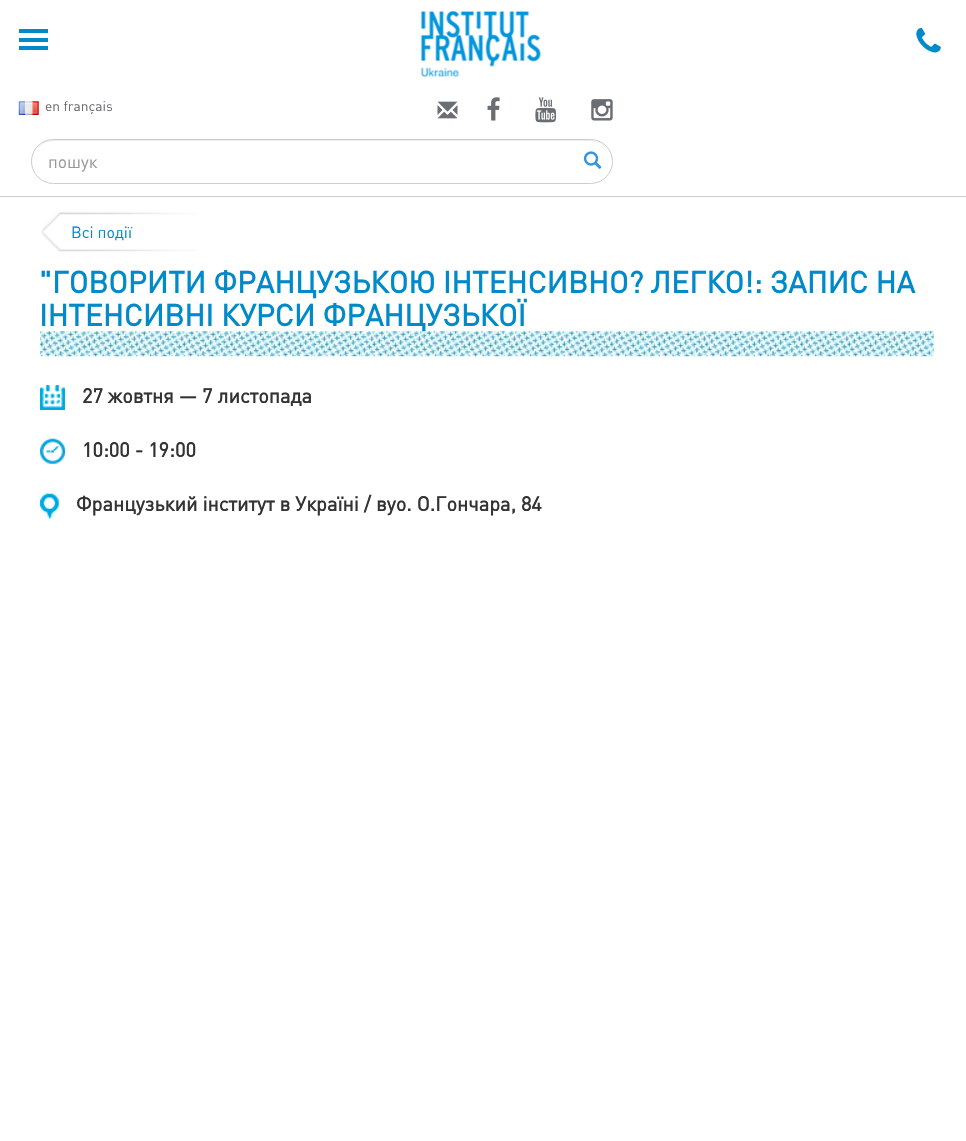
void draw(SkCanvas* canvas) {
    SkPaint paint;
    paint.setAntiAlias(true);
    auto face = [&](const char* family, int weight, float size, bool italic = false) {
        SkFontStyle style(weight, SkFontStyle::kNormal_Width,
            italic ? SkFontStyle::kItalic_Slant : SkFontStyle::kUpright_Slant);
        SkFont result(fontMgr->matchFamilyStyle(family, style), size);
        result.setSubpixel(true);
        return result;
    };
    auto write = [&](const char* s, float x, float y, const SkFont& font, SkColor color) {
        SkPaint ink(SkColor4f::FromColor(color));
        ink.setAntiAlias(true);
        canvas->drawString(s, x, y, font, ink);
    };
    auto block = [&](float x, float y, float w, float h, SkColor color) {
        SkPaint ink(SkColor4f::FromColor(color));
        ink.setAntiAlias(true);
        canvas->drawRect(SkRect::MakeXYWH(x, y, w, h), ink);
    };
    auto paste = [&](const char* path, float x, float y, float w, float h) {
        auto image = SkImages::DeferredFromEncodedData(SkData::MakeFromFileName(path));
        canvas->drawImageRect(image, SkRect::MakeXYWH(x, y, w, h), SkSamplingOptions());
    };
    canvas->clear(SK_ColorWHITE);
    block(0, 196, 966, 1, SkColorSetRGB(204, 204, 204));
    paste("pic1.png", 420, 11, 121, 67);
    block(19, 38, 29, 4, SkColorSetRGB(0, 138, 201));
    block(19, 29, 29, 4, SkColorSetRGB(0, 138, 201));
    block(19, 46, 29, 4, SkColorSetRGB(0, 138, 201));
    paste("pic2.png", 916, 28, 25, 25);
    paste("pic3.png", 18, 101, 21, 14);
    auto kFont1 = face("DIN", 400, 13.75f);
    write("en français", 45, 111, kFont1, SkColorSetRGB(106, 109, 114));
    paste("pic4.png", 437, 101, 21, 18);
    paste("pic5.png", 487, 97, 13, 24);
    paste("pic6.png", 535, 97, 22, 26);
    paste("pic7.png", 591, 99, 22, 22);
    paint.setColor(SkColorSetRGB(236, 236, 236));
    canvas->drawPath(SkPathBuilder().moveTo(54, 141).lineTo(590, 141).cubicTo(602, 141, 611, 151, 611, 162).cubicTo(611, 150, 601, 140, 590, 140).lineTo(54, 140).cubicTo(47, 140, 41, 143, 37, 149).cubicTo(41, 144, 47, 141, 54, 141).close().detach(), paint);
    paint.setStyle(SkPaint::kStroke_Style);
    paint.setStrokeWidth(1);
    paint.setColor(SkColorSetRGB(204, 204, 204));
    canvas->drawRoundRect(SkRect::MakeXYWH(31.5f, 139.5f, 581, 44), 22, 22, paint);
    auto kFont2 = face("DIN", 400, 17.5f);
    write("пошук", 48, 168, kFont2, SkColorSetRGB(153, 153, 153));
    paste("pic8.png", 583, 151, 19, 18);
    paste("pic9.png", 41, 211, 157, 41);
    auto kFont3 = face("DIN", 400, 16);
    write("Всі події", 71, 238, kFont3, SkColorSetRGB(0, 138, 201));
    auto kFont4 = face("DIN", 700, 30);
    write("\"ГОВОРИТИ ФРАНЦУЗЬКОЮ ІНТЕНСИВНО? ЛЕГКО!: ЗАПИС НА", 39, 293, kFont4, SkColorSetRGB(0, 138, 201));
    paste("pic10.png", 40, 331, 894, 26);
    write("ІНТЕНСИВНІ КУРСИ ФРАНЦУЗЬКОЇ", 39, 326, kFont4, SkColorSetRGB(0, 138, 201));
    paste("pic11.png", 40, 385, 25, 25);
    auto kFont5 = face("DIN", 700, 20);
    write("27 жовтня — 7 листопада", 82, 403, kFont5, SkColorSetRGB(51, 51, 51));
    paste("pic12.png", 40, 438, 25, 26);
    write("10:00 - 19:00", 82, 457, kFont5, SkColorSetRGB(51, 51, 51));
    paste("pic13.png", 40, 493, 19, 26);
    write("Французький інститут в Україні / вуо. О.Гончара, 84", 76, 511, kFont5, SkColorSetRGB(51, 51, 51));
}
